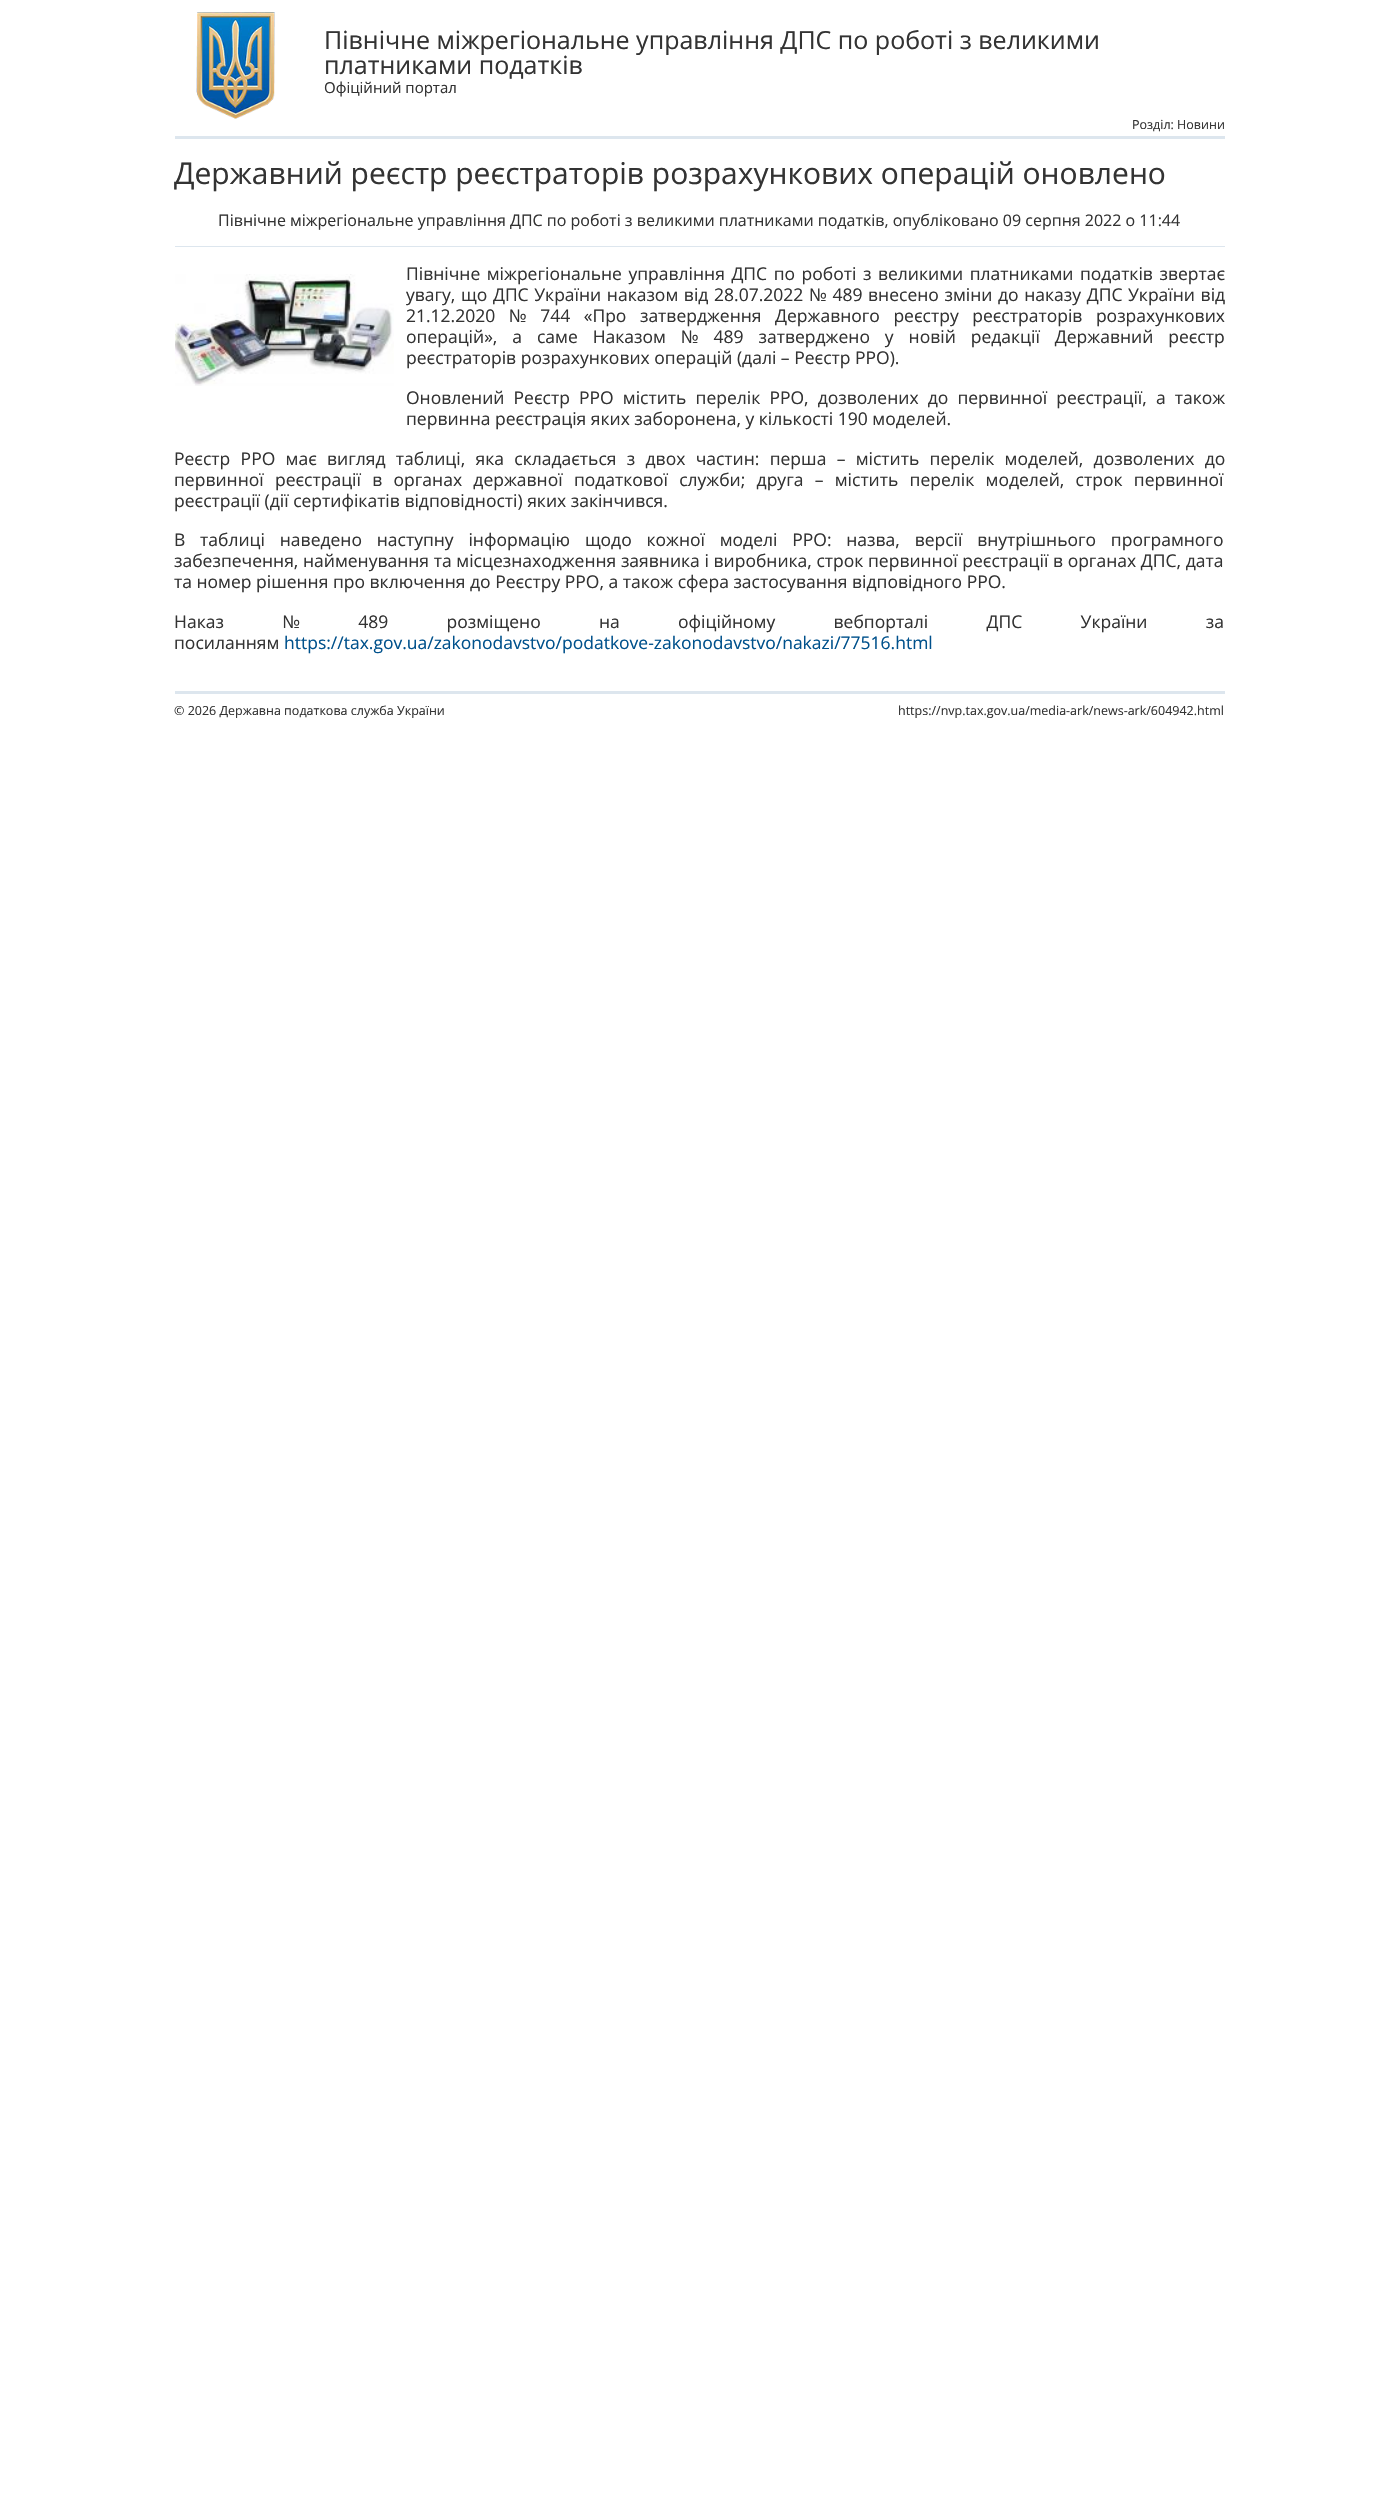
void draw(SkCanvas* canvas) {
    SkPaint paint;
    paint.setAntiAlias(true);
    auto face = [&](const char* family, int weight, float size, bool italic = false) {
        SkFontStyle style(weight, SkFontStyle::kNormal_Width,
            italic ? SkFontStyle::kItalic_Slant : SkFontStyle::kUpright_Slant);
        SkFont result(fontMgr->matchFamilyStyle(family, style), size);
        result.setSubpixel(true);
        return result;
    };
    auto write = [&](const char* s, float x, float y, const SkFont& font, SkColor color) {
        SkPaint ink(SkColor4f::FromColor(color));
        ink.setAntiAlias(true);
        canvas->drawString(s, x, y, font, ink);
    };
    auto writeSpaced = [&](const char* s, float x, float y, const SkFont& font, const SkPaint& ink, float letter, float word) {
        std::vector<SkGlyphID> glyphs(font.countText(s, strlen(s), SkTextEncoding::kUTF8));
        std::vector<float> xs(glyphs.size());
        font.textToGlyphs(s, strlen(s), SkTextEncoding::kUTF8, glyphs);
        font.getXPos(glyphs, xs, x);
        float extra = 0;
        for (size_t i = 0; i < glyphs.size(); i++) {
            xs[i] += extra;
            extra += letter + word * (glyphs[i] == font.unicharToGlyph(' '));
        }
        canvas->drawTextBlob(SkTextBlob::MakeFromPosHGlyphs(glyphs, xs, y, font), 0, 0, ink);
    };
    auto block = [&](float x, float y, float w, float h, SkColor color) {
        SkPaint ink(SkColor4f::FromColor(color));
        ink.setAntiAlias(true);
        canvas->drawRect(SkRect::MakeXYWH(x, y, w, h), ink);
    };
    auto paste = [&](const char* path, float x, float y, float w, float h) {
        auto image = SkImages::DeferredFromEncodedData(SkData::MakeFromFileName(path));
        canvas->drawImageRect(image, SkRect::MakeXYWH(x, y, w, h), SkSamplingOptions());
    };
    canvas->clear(SK_ColorWHITE);
    paste("pic1.png", 196, 12, 79, 107);
    auto kFont1 = face("Open Sans", 400, 25);
    write("Північне міжрегіональне управління ДПС по роботі з великими", 324, 49, kFont1, SkColorSetRGB(51, 51, 51));
    write("платниками податків", 324, 74, kFont1, SkColorSetRGB(51, 51, 51));
    auto kFont2 = face("Open Sans", 400, 15);
    write("Офіційний портал", 324, 93, kFont2, SkColorSetRGB(51, 51, 51));
    block(175, 136, 1050, 3, SkColorSetRGB(221, 230, 238));
    block(175, 246, 1050, 1, SkColorSetRGB(221, 230, 238));
    auto kFont3 = face("Open Sans", 400, 12.5f);
    write("Розділ: Новини", 1132, 129, kFont3, SkColorSetRGB(51, 51, 51));
    auto kFont4 = face("Open Sans", 400, 16);
    write("Північне міжрегіональне управління ДПС по роботі з великими платниками податків, опубліковано 09 серпня 2022 о 11:44", 218, 226, kFont4, SkColorSetRGB(51, 51, 51));
    auto kFont5 = face("Open Sans", 400, 30);
    write("Державний реєстр реєстраторів розрахункових операцій оновлено", 174, 184, kFont5, SkColorSetRGB(51, 51, 51));
    auto kFont6 = face("Open Sans", 400, 17.5f);
    paint.setColor(SkColorSetRGB(51, 51, 51));
    writeSpaced("Північне міжрегіональне управління ДПС по роботі з великими платниками податків звертає", 406, 280, kFont6, paint, 0, 2);
    writeSpaced("увагу, що ДПС України наказом від 28.07.2022 № 489 внесено зміни до наказу ДПС України від", 406, 301, kFont6, paint, 0, 1.1f);
    writeSpaced("21.12.2020 № 744 «Про затвердження Державного реєстру реєстраторів розрахункових", 406, 322, kFont6, paint, 0, 9);
    writeSpaced("операцій», а саме Наказом № 489 затверджено у новій редакції Державний реєстр", 406, 343, kFont6, paint, 0, 10.4f);
    write("реєстраторів розрахункових операцій (далі – Реєстр РРО).", 406, 364, kFont6, SkColorSetRGB(51, 51, 51));
    writeSpaced("Оновлений Реєстр РРО містить перелік РРО, дозволених до первинної реєстрації, а також", 406, 404, kFont6, paint, 0, 4.6f);
    write("первинна реєстрація яких заборонена, у кількості 190 моделей.", 406, 425, kFont6, SkColorSetRGB(51, 51, 51));
    writeSpaced("Реєстр РРО має вигляд таблиці, яка складається з двох частин: перша – містить перелік моделей, дозволених до", 174, 465, kFont6, paint, 0, 5.75f);
    writeSpaced("первинної реєстрації в органах державної податкової служби; друга – містить перелік моделей, строк первинної", 174, 486, kFont6, paint, 0, 6.75f);
    write("реєстрації (дії сертифікатів відповідності) яких закінчився.", 174, 507, kFont6, SkColorSetRGB(51, 51, 51));
    writeSpaced("В таблиці наведено наступну інформацію щодо кожної моделі РРО: назва, версії внутрішнього програмного", 174, 546, kFont6, paint, 0, 10.25f);
    writeSpaced("забезпечення, найменування та місцезнаходження заявника і виробника, строк первинної реєстрації в органах ДПС, дата", 174, 567, kFont6, paint, 0, 0.1f);
    write("та номер рішення про включення до Реєстру РРО, а також сфера застосування відповідного РРО.", 174, 588, kFont6, SkColorSetRGB(51, 51, 51));
    writeSpaced("Наказ № 489 розміщено на офіційному вебпорталі ДПС України за", 174, 628, kFont6, paint, 0, 53.75f);
    write("посиланням", 174, 649, kFont6, SkColorSetRGB(51, 51, 51));
    write("https://tax.gov.ua/zakonodavstvo/podatkove-zakonodavstvo/nakazi/77516.html", 284, 649, kFont6, SkColorSetRGB(0, 81, 140));
    paste("pic2.png", 175, 274, 219, 112);
    block(175, 691, 1050, 3, SkColorSetRGB(221, 230, 238));
    write("© 2026 Державна податкова служба України", 174, 715, kFont3, SkColorSetRGB(51, 51, 51));
    write("https://nvp.tax.gov.ua/media-ark/news-ark/604942.html", 898, 715, kFont3, SkColorSetRGB(51, 51, 51));
}
